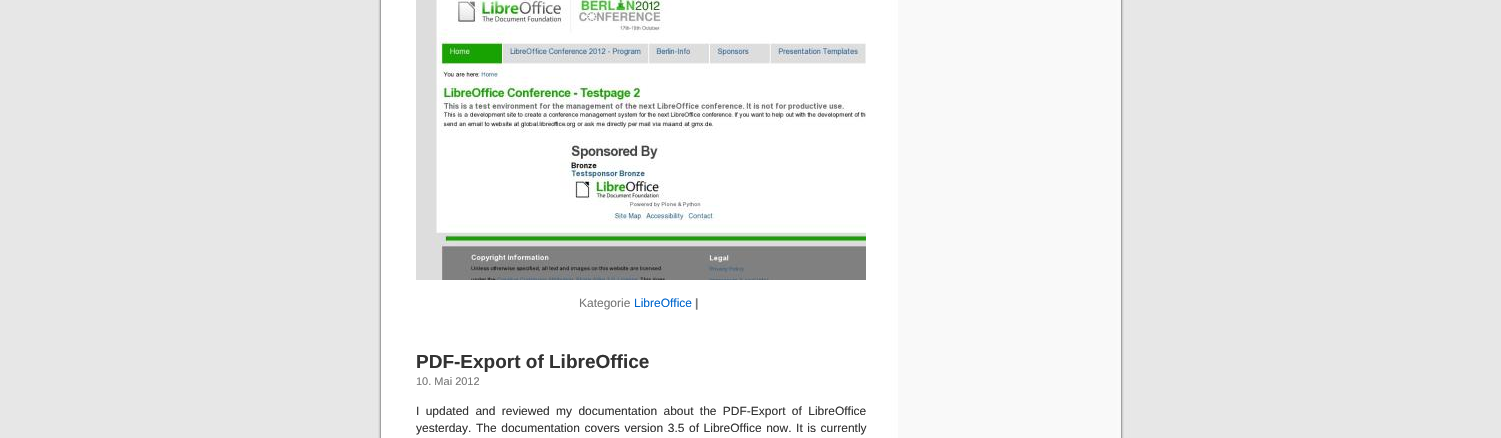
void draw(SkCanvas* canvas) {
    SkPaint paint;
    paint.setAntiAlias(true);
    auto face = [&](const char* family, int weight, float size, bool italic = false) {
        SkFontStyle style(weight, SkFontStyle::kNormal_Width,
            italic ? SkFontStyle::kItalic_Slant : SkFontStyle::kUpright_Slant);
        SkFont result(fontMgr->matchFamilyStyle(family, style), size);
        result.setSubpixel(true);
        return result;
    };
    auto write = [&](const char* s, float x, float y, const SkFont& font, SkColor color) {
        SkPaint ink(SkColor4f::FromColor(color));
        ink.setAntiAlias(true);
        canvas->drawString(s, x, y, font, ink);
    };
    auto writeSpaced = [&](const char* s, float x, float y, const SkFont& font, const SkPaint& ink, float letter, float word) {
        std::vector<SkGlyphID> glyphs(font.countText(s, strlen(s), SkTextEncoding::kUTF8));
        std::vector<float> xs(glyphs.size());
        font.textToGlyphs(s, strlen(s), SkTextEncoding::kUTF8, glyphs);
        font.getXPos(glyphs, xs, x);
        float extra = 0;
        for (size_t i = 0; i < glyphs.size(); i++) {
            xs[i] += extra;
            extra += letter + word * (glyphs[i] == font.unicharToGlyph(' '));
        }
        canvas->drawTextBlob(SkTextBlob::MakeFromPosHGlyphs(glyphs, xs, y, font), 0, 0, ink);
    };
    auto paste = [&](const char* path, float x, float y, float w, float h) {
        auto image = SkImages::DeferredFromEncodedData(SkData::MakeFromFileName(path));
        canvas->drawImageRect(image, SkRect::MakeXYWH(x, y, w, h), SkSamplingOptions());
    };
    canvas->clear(SkColorSetRGB(231, 231, 231));
    paste("pic1.png", 371, 0, 760, 438);
    paste("pic2.png", 416, 0, 450, 280);
    auto kFont1 = face("Liberation Sans", 400, 12);
    write("Kategorie", 579, 307, kFont1, SkColorSetRGB(119, 119, 119));
    write("LibreOffice", 634, 307, kFont1, SkColorSetRGB(0, 102, 204));
    auto kFont2 = face("Liberation Sans", 700, 12);
    write("|", 695, 307, kFont2, SkColorSetRGB(119, 119, 119));
    auto kFont3 = face("Liberation Sans", 700, 19);
    write("PDF-Export of LibreOffice", 416, 368, kFont3, SkColorSetRGB(51, 51, 51));
    auto kFont4 = face("Liberation Sans", 400, 11);
    write("10. Mai 2012", 416, 385, kFont4, SkColorSetRGB(119, 119, 119));
    paint.setColor(SkColorSetRGB(51, 51, 51));
    writeSpaced("I updated and reviewed my documentation about the PDF-Export of LibreOffice", 416, 415, kFont1, paint, 0, 3);
    writeSpaced("yesterday. The documentation covers version 3.5 of LibreOffice now. It is currently", 416, 432, kFont1, paint, 0, 1.25f);
}
